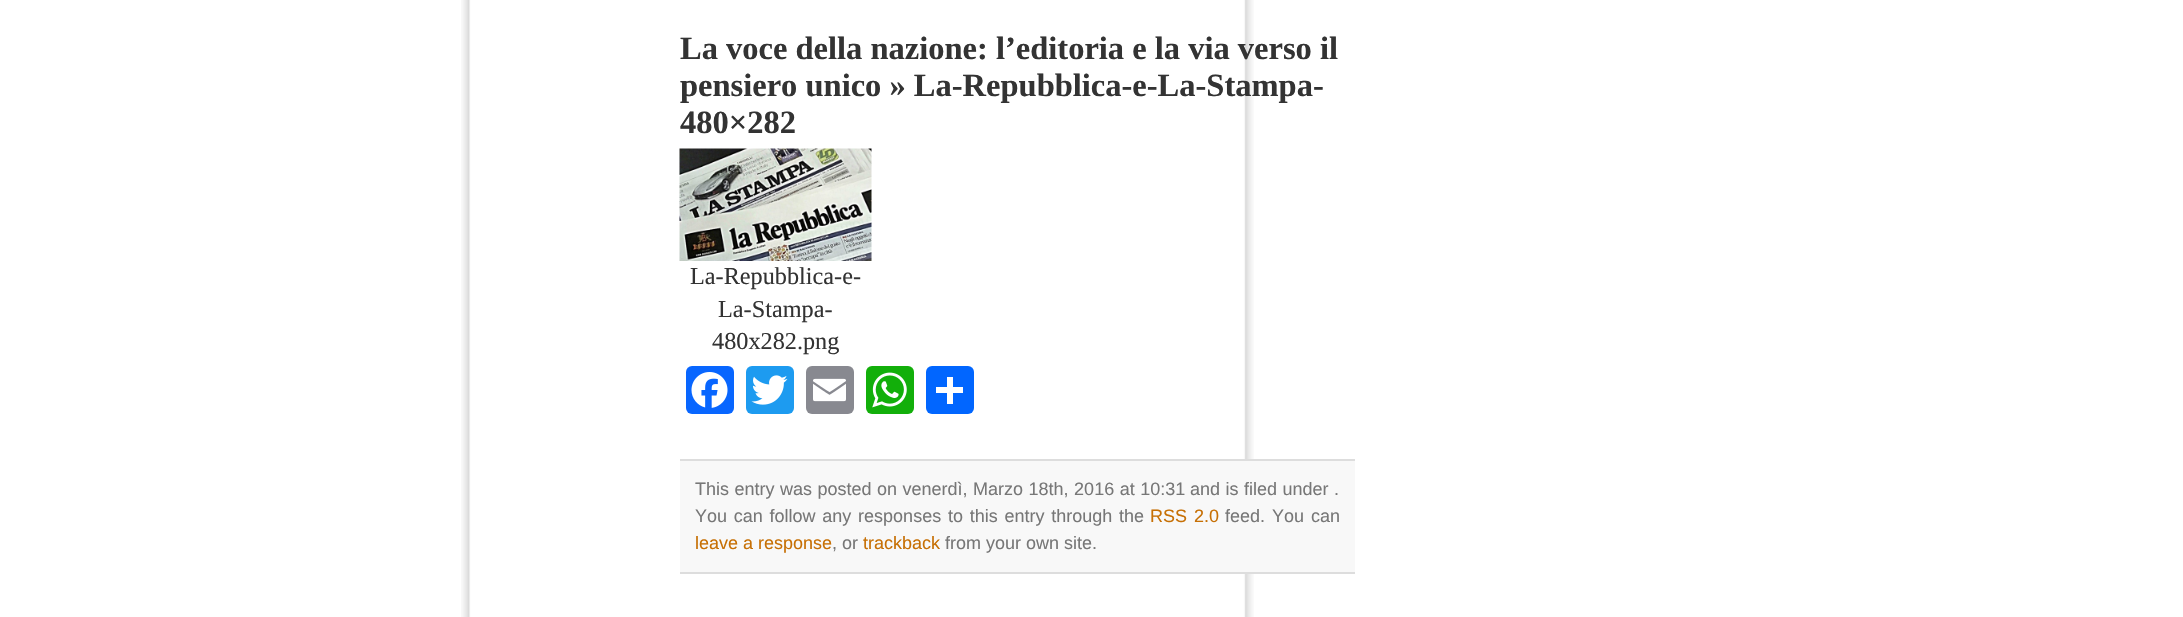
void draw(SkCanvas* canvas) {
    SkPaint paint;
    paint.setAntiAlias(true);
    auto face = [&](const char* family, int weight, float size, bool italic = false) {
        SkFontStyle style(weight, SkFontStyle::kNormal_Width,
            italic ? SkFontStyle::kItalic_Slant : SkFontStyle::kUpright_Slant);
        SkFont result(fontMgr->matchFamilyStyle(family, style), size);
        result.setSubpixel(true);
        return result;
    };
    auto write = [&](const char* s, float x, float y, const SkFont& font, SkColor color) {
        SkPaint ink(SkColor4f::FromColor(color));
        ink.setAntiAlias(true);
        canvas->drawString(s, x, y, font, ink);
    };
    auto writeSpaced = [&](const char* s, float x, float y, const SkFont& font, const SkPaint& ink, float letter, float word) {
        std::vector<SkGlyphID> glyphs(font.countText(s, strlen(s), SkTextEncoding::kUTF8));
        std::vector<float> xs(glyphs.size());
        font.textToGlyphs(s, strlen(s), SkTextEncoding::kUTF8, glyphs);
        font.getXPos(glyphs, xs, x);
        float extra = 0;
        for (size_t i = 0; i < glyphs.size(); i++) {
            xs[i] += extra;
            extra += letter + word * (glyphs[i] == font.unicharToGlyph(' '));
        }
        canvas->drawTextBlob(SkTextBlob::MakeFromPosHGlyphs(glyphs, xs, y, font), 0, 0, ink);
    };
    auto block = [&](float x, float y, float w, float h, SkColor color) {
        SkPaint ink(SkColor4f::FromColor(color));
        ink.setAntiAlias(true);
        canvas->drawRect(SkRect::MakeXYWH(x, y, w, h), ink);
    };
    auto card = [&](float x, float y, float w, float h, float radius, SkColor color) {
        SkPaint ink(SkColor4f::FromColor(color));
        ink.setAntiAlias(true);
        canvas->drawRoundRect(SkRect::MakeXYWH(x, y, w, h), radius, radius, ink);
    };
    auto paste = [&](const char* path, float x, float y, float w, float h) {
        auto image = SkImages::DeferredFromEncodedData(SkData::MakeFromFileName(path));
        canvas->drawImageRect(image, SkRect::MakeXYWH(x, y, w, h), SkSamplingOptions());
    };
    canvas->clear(SK_ColorWHITE);
    paste("pic1.png", 461, 0, 793, 617);
    auto kFont1 = face("Liberation Serif", 700, 32.5f);
    write("La voce della nazione: l’editoria e la via verso il", 680, 59, kFont1, SkColorSetRGB(51, 51, 51));
    write("pensiero unico » La-Repubblica-e-La-Stampa-", 680, 96, kFont1, SkColorSetRGB(51, 51, 51));
    write("480×282", 680, 133, kFont1, SkColorSetRGB(51, 51, 51));
    paste("pic2.png", 679, 148, 193, 113);
    auto kFont2 = face("Liberation Serif", 400, 24.25f);
    write("La-Repubblica-e-", 690, 284, kFont2, SkColorSetRGB(51, 51, 51));
    write("La-Stampa-", 718, 317, kFont2, SkColorSetRGB(51, 51, 51));
    write("480x282.png", 712, 349, kFont2, SkColorSetRGB(51, 51, 51));
    card(686, 366, 48, 48, 6, SkColorSetRGB(8, 102, 255));
    paste("pic3.png", 691, 372, 37, 36);
    card(746, 366, 48, 48, 6, SkColorSetRGB(29, 155, 240));
    paste("pic4.png", 751, 375, 37, 30);
    card(806, 366, 48, 48, 6, SkColorSetRGB(136, 137, 144));
    paste("pic5.png", 813, 378, 33, 24);
    card(866, 366, 48, 48, 6, SkColorSetRGB(18, 175, 10));
    paste("pic6.png", 872, 372, 35, 36);
    card(926, 366, 48, 48, 6, SkColorSetRGB(1, 102, 255));
    block(947, 377, 6, 27, SK_ColorWHITE);
    block(936, 387, 27, 6, SK_ColorWHITE);
    block(680, 461, 675, 111, SkColorSetRGB(248, 248, 248));
    block(680, 459, 675, 2, SkColorSetRGB(221, 221, 221));
    block(680, 572, 675, 2, SkColorSetRGB(221, 221, 221));
    auto kFont3 = face("Liberation Sans", 400, 18);
    paint.setColor(SkColorSetRGB(119, 119, 119));
    writeSpaced("This entry was posted", 695, 495, kFont3, paint, 0, 0.5f);
    writeSpaced("on venerdì, Marzo 18th, 2016 at 10:31", 877, 495, kFont3, paint, 0, 0.5f);
    writeSpaced("and is filed under .", 1190, 495, kFont3, paint, 0, 0.5f);
    writeSpaced("You can follow any responses to this entry through the", 695, 522, kFont3, paint, 0, 1.75f);
    paint.setColor(SkColorSetRGB(199, 112, 5));
    writeSpaced("RSS 2.0", 1150, 522, kFont3, paint, 0, 2);
    write("feed.", 1225, 522, kFont3, SkColorSetRGB(119, 119, 119));
    paint.setColor(SkColorSetRGB(119, 119, 119));
    writeSpaced("You can", 1272, 522, kFont3, paint, 0, 2);
    write("leave a response", 695, 549, kFont3, SkColorSetRGB(199, 112, 5));
    write(", or", 832, 549, kFont3, SkColorSetRGB(119, 119, 119));
    write("trackback", 863, 549, kFont3, SkColorSetRGB(199, 112, 5));
    write("from your own site.", 945, 549, kFont3, SkColorSetRGB(119, 119, 119));
}
